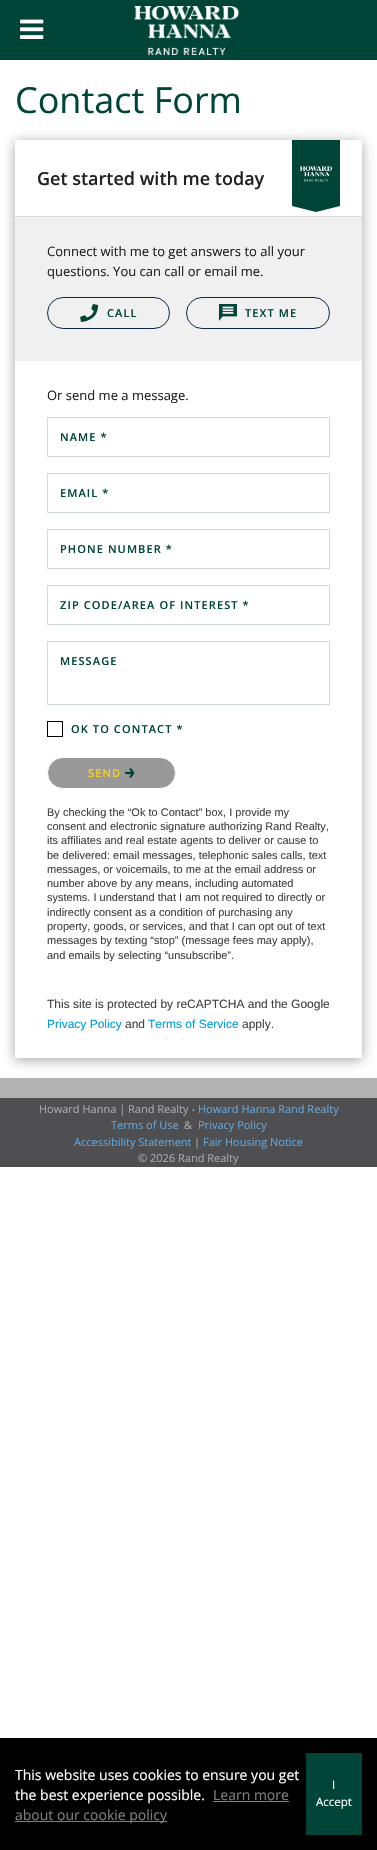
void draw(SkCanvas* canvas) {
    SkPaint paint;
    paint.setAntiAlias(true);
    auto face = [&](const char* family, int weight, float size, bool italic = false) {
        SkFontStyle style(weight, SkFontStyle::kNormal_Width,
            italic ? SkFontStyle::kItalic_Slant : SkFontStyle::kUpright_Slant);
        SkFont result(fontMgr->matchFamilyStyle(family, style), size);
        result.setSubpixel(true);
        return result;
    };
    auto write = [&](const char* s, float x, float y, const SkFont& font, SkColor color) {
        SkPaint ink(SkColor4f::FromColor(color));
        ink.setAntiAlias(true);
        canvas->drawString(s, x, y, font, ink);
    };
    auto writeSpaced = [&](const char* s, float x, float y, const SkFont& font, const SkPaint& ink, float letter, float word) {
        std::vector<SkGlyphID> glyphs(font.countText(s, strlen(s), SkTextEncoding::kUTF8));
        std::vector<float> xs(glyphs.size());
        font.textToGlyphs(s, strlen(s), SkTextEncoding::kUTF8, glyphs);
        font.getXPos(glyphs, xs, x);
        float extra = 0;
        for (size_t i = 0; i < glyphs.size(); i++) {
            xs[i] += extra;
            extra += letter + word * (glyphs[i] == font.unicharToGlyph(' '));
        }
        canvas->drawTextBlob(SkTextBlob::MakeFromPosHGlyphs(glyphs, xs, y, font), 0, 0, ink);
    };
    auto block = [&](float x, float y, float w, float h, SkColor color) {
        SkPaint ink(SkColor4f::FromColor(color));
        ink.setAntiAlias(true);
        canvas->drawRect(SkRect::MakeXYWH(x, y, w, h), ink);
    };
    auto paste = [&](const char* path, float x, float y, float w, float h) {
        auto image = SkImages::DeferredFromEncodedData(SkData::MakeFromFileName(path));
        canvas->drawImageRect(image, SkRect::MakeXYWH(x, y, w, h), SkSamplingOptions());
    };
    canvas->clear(SK_ColorWHITE);
    block(0, 0, 377, 60, SkColorSetRGB(0, 69, 56));
    paste("pic1.png", 20, 19, 24, 20);
    paste("pic2.png", 134, 6, 105, 49);
    auto kFont1 = face("Open Sans", 400, 36);
    write("Contact Form", 15, 113, kFont1, SkColorSetRGB(0, 69, 56));
    canvas->save();
    canvas->clipPath(SkPathBuilder(SkPathFillType::kEvenOdd).moveTo(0, 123).lineTo(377, 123).lineTo(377, 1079).lineTo(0, 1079).close().moveTo(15, 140).lineTo(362, 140).lineTo(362, 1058).lineTo(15, 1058).close().detach(), true);
    paint.setColor(SkColorSetARGB(128, 71, 71, 71));
    paint.setMaskFilter(SkMaskFilter::MakeBlur(kNormal_SkBlurStyle, 6));
    canvas->drawRect(SkRect::MakeXYWH(15, 142, 347, 918), paint);
    paint.setMaskFilter(nullptr);
    canvas->restore();
    block(15, 216, 347, 1, SkColorSetRGB(217, 217, 217));
    auto kFont2 = face("Open Sans", 600, 18);
    write("Get started with me today", 37, 185, kFont2, SkColorSetRGB(34, 34, 34));
    paste("pic3.png", 292, 140, 48, 72);
    block(15, 217, 347, 144, SkColorSetRGB(240, 240, 240));
    auto kFont3 = face("Open Sans", 400, 13);
    write("Connect with me to get answers to all your", 47, 256, kFont3, SkColorSetRGB(34, 34, 34));
    write("questions. You can call or email me.", 47, 276, kFont3, SkColorSetRGB(34, 34, 34));
    paint.setStyle(SkPaint::kStroke_Style);
    paint.setStrokeWidth(1);
    paint.setColor(SkColorSetRGB(14, 43, 74));
    canvas->drawRoundRect(SkRect::MakeXYWH(47.5f, 297.5f, 122, 31), 15.5f, 15.5f, paint);
    paste("pic4.png", 80, 304, 19, 18);
    auto kFont4 = face("Open Sans", 600, 11);
    paint.setStyle(SkPaint::kFill_Style);
    paint.setColor(SkColorSetRGB(0, 69, 56));
    writeSpaced("CALL", 107, 317, kFont4, paint, 1.1f, 0);
    paint.setStyle(SkPaint::kStroke_Style);
    paint.setColor(SkColorSetRGB(14, 43, 74));
    canvas->drawRoundRect(SkRect::MakeXYWH(186.5f, 297.5f, 143, 31), 15.5f, 15.5f, paint);
    paste("pic5.png", 219, 304, 18, 17);
    paint.setStyle(SkPaint::kFill_Style);
    paint.setColor(SkColorSetRGB(0, 69, 56));
    writeSpaced("TEXT ME", 245, 317, kFont4, paint, 1.1f, 0);
    write("Or send me a message.", 47, 400, kFont3, SkColorSetRGB(34, 34, 34));
    paint.setStyle(SkPaint::kStroke_Style);
    paint.setColor(SkColorSetRGB(208, 215, 223));
    canvas->drawRect(SkRect::MakeXYWH(47.5f, 417.5f, 282, 39), paint);
    paint.setStyle(SkPaint::kFill_Style);
    paint.setColor(SkColorSetRGB(0, 69, 56));
    writeSpaced("NAME *", 60, 441, kFont4, paint, 1.1f, 0);
    paint.setStyle(SkPaint::kStroke_Style);
    paint.setColor(SkColorSetRGB(208, 215, 223));
    canvas->drawRect(SkRect::MakeXYWH(47.5f, 473.5f, 282, 39), paint);
    paint.setStyle(SkPaint::kFill_Style);
    paint.setColor(SkColorSetRGB(0, 69, 56));
    writeSpaced("EMAIL *", 60, 497, kFont4, paint, 1.1f, 0);
    paint.setStyle(SkPaint::kStroke_Style);
    paint.setColor(SkColorSetRGB(208, 215, 223));
    canvas->drawRect(SkRect::MakeXYWH(47.5f, 529.5f, 282, 39), paint);
    paint.setStyle(SkPaint::kFill_Style);
    paint.setColor(SkColorSetRGB(0, 69, 56));
    writeSpaced("PHONE NUMBER *", 60, 553, kFont4, paint, 1.1f, 0);
    paint.setStyle(SkPaint::kStroke_Style);
    paint.setColor(SkColorSetRGB(208, 215, 223));
    canvas->drawRect(SkRect::MakeXYWH(47.5f, 585.5f, 282, 39), paint);
    paint.setStyle(SkPaint::kFill_Style);
    paint.setColor(SkColorSetRGB(0, 69, 56));
    writeSpaced("ZIP CODE/AREA OF INTEREST *", 60, 609, kFont4, paint, 1.1f, 0);
    paint.setStyle(SkPaint::kStroke_Style);
    paint.setColor(SkColorSetRGB(208, 215, 223));
    canvas->drawRect(SkRect::MakeXYWH(47.5f, 641.5f, 282, 63), paint);
    paint.setStyle(SkPaint::kFill_Style);
    paint.setColor(SkColorSetRGB(0, 69, 56));
    writeSpaced("MESSAGE", 60, 665, kFont4, paint, 1.1f, 0);
    paint.setStyle(SkPaint::kStroke_Style);
    paint.setColor(SK_ColorBLACK);
    canvas->drawRect(SkRect::MakeXYWH(47.5f, 721.5f, 15, 15), paint);
    paint.setStyle(SkPaint::kFill_Style);
    paint.setColor(SkColorSetRGB(0, 69, 56));
    writeSpaced("OK TO CONTACT *", 71, 733, kFont4, paint, 1.1f, 0);
    paint.setColor(SkColorSetRGB(153, 153, 153));
    canvas->drawRoundRect(SkRect::MakeXYWH(47.5f, 757.5f, 128, 31), 15.5f, 15.5f, paint);
    paint.setStyle(SkPaint::kStroke_Style);
    paint.setColor(SK_ColorWHITE);
    canvas->drawRoundRect(SkRect::MakeXYWH(47.5f, 757.5f, 128, 31), 15.5f, 15.5f, paint);
    paint.setStyle(SkPaint::kFill_Style);
    paint.setColor(SkColorSetRGB(251, 206, 32));
    writeSpaced("SEND", 88, 777, kFont4, paint, 1.1f, 0);
    paste("pic6.png", 125, 768, 10, 10);
    auto kFont5 = face("Liberation Sans", 400, 11);
    write("By checking the “Ok to Contact” box, I provide my", 47, 816, kFont5, SkColorSetRGB(65, 64, 66));
    write("consent and electronic signature authorizing Rand Realty,", 47, 830, kFont5, SkColorSetRGB(65, 64, 66));
    write("its affiliates and real estate agents to deliver or cause to", 47, 844, kFont5, SkColorSetRGB(65, 64, 66));
    write("be delivered: email messages, telephonic sales calls, text", 47, 859, kFont5, SkColorSetRGB(65, 64, 66));
    write("messages, or voicemails, to me at the email address or", 47, 873, kFont5, SkColorSetRGB(65, 64, 66));
    write("number above by any means, including automated", 47, 887, kFont5, SkColorSetRGB(65, 64, 66));
    write("systems. I understand that I am not required to directly or", 47, 901, kFont5, SkColorSetRGB(65, 64, 66));
    write("indirectly consent as a condition of purchasing any", 47, 916, kFont5, SkColorSetRGB(65, 64, 66));
    write("property, goods, or services, and that I can opt out of text", 47, 930, kFont5, SkColorSetRGB(65, 64, 66));
    write("messages by texting “stop” (message fees may apply),", 47, 944, kFont5, SkColorSetRGB(65, 64, 66));
    write("and emails by selecting “unsubscribe”.", 47, 959, kFont5, SkColorSetRGB(65, 64, 66));
    auto kFont6 = face("Liberation Sans", 400, 12);
    write("This site is protected by reCAPTCHA and the Google", 47, 1008, kFont6, SkColorSetRGB(65, 64, 66));
    write("Privacy Policy", 47, 1028, kFont6, SkColorSetRGB(0, 156, 222));
    write("and", 125, 1028, kFont6, SkColorSetRGB(65, 64, 66));
    write("Terms of Service", 148, 1028, kFont6, SkColorSetRGB(0, 156, 222));
    write("apply.", 242, 1028, kFont6, SkColorSetRGB(65, 64, 66));
    block(0, 1078, 377, 20, SkColorSetRGB(179, 178, 179));
    block(0, 1098, 377, 69, SkColorSetRGB(79, 79, 81));
    auto kFont7 = face("Open Sans", 400, 11);
    write("Howard Hanna | Rand Realty -", 39, 1113, kFont7, SkColorSetRGB(170, 170, 170));
    write("Howard Hanna Rand Realty", 198, 1113, kFont7, SkColorSetRGB(101, 166, 216));
    write("Terms of Use", 111, 1129, kFont7, SkColorSetRGB(101, 166, 216));
    write("&", 184, 1129, kFont7, SkColorSetRGB(170, 170, 170));
    write("Privacy Policy", 198, 1129, kFont7, SkColorSetRGB(101, 166, 216));
    write("Accessibility Statement", 74, 1146, kFont7, SkColorSetRGB(101, 166, 216));
    write("|", 194, 1146, kFont7, SkColorSetRGB(170, 170, 170));
    write("Fair Housing Notice", 203, 1146, kFont7, SkColorSetRGB(101, 166, 216));
    write("© 2026 Rand Realty", 138, 1162, kFont7, SkColorSetRGB(170, 170, 170));
    block(0, 1738, 377, 112, SK_ColorBLACK);
    auto kFont8 = face("Open Sans", 400, 14);
    write("This website uses cookies to ensure you get", 15, 1780, kFont8, SK_ColorWHITE);
    write("the best experience possible.", 15, 1800, kFont8, SK_ColorWHITE);
    write("Learn more", 213, 1800, kFont8, SkColorSetRGB(128, 128, 128));
    block(213, 1801, 76, 1, SkColorSetRGB(128, 128, 128));
    block(15, 1821, 152, 1, SkColorSetRGB(128, 128, 128));
    write("about our cookie policy", 15, 1820, kFont8, SkColorSetRGB(128, 128, 128));
    block(306, 1753, 56, 82, SkColorSetRGB(0, 69, 56));
    auto kFont9 = face("Open Sans", 400, 11.5f);
    write("I", 332, 1789, kFont9, SK_ColorWHITE);
    write("Accept", 316, 1806, kFont9, SK_ColorWHITE);
}
